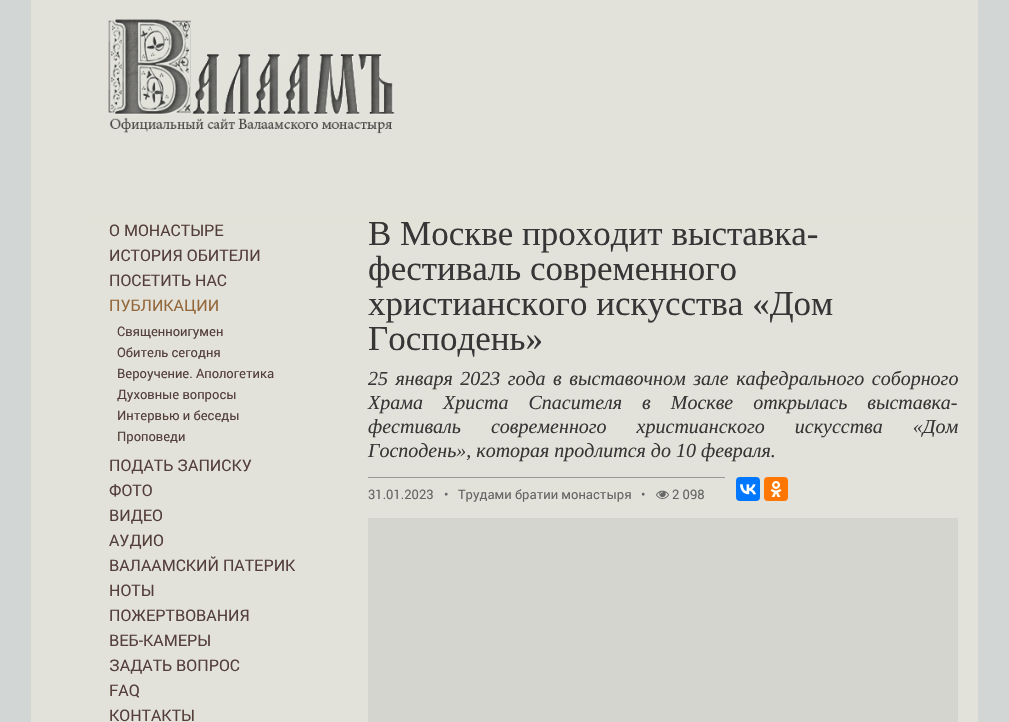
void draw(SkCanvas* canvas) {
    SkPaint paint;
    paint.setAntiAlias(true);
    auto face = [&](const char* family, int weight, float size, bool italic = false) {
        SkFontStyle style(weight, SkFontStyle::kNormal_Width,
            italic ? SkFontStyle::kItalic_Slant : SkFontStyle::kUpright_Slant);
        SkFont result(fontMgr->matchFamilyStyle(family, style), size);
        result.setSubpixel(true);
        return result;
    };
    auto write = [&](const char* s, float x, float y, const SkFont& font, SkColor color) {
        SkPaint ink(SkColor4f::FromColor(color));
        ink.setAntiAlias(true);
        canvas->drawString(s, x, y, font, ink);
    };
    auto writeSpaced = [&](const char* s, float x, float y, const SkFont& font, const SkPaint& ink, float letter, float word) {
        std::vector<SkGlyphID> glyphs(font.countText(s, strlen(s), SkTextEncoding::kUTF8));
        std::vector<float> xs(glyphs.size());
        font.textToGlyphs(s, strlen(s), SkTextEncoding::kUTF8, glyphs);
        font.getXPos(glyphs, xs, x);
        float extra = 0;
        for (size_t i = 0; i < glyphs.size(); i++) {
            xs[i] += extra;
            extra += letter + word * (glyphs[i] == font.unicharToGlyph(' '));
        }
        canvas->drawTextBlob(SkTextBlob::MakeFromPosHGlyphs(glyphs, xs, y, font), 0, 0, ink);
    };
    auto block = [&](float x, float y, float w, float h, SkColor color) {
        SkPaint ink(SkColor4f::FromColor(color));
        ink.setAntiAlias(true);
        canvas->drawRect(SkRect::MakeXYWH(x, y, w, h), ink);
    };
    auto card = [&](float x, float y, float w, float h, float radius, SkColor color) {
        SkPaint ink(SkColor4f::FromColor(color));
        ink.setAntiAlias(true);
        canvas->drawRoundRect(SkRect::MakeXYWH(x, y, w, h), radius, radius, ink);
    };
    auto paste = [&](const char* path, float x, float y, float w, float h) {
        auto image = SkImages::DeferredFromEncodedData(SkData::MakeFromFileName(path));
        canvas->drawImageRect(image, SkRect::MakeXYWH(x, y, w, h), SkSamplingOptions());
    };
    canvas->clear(SkColorSetRGB(210, 215, 213));
    block(31, 0, 947, 722, SkColorSetRGB(226, 226, 219));
    paste("pic1.png", 108, 19, 287, 115);
    {
        const SkColor colors[] = {SkColorSetRGB(225, 225, 220), SkColorSetRGB(226, 226, 218), SkColorSetRGB(226, 226, 216), SkColorSetRGB(226, 226, 219)};
        const float stops[] = {0.6f, 0.7f, 0.9f, 1};
        const SkPoint ends[] = {{532, 0}, {532, 251}};
        paint.setShader(SkGradientShader::MakeLinear(ends, colors, stops, 4, SkTileMode::kClamp));
        paint.setAlpha(255);
    }
    canvas->drawRect(SkRect::MakeXYWH(89, 213, 886, 17), paint);
    auto kFont1 = face("Roboto", 400, 16);
    write("О МОНАСТЫРЕ", 109, 236, kFont1, SkColorSetRGB(85, 63, 59));
    write("ИСТОРИЯ ОБИТЕЛИ", 109, 261, kFont1, SkColorSetRGB(85, 63, 59));
    write("ПОСЕТИТЬ НАС", 109, 286, kFont1, SkColorSetRGB(85, 63, 59));
    write("ПУБЛИКАЦИИ", 109, 311, kFont1, SkColorSetRGB(148, 104, 59));
    auto kFont2 = face("Roboto", 400, 13);
    write("Священноигумен", 117, 336, kFont2, SkColorSetRGB(85, 63, 59));
    write("Обитель сегодня", 117, 357, kFont2, SkColorSetRGB(85, 63, 59));
    write("Вероучение. Апологетика", 117, 378, kFont2, SkColorSetRGB(85, 63, 59));
    write("Духовные вопросы", 117, 399, kFont2, SkColorSetRGB(85, 63, 59));
    write("Интервью и беседы", 117, 420, kFont2, SkColorSetRGB(85, 63, 59));
    write("Проповеди", 117, 441, kFont2, SkColorSetRGB(85, 63, 59));
    write("ПОДАТЬ ЗАПИСКУ", 109, 471, kFont1, SkColorSetRGB(85, 63, 59));
    write("ФОТО", 109, 496, kFont1, SkColorSetRGB(85, 63, 59));
    write("ВИДЕО", 109, 521, kFont1, SkColorSetRGB(85, 63, 59));
    write("АУДИО", 109, 546, kFont1, SkColorSetRGB(85, 63, 59));
    write("ВАЛААМСКИЙ ПАТЕРИК", 109, 571, kFont1, SkColorSetRGB(85, 63, 59));
    write("НОТЫ", 109, 596, kFont1, SkColorSetRGB(85, 63, 59));
    write("ПОЖЕРТВОВАНИЯ", 109, 621, kFont1, SkColorSetRGB(85, 63, 59));
    write("ВЕБ-КАМЕРЫ", 109, 646, kFont1, SkColorSetRGB(85, 63, 59));
    write("ЗАДАТЬ ВОПРОС", 109, 671, kFont1, SkColorSetRGB(85, 63, 59));
    write("FAQ", 109, 696, kFont1, SkColorSetRGB(85, 63, 59));
    write("КОНТАКТЫ", 109, 721, kFont1, SkColorSetRGB(85, 63, 59));
    auto kFont3 = face("Liberation Serif", 400, 35);
    write("В Москве проходит выставка-", 368, 245, kFont3, SkColorSetRGB(55, 54, 54));
    write("фестиваль современного", 368, 280, kFont3, SkColorSetRGB(55, 54, 54));
    write("христианского искусства «Дом", 368, 315, kFont3, SkColorSetRGB(55, 54, 54));
    write("Господень»", 368, 350, kFont3, SkColorSetRGB(55, 54, 54));
    auto kFont4 = face("Liberation Serif", 400, 20, true);
    paint.setShader(nullptr);
    paint.setColor(SkColorSetRGB(55, 54, 54));
    writeSpaced("25 января 2023 года в выставочном зале кафедрального соборного", 368, 385, kFont4, paint, 0, 2.5f);
    writeSpaced("Храма Христа Спасителя в Москве открылась выставка-", 368, 409, kFont4, paint, 0, 15);
    writeSpaced("фестиваль современного христианского искусства «Дом", 368, 433, kFont4, paint, 0, 25);
    write("Господень», которая продлится до 10 февраля.", 368, 457, kFont4, SkColorSetRGB(55, 54, 54));
    block(368, 477, 357, 1, SkColorSetRGB(153, 153, 153));
    write("31.01.2023", 368, 499, kFont2, SkColorSetRGB(102, 102, 102));
    write("•", 444, 499, kFont2, SkColorSetRGB(102, 102, 102));
    write("Трудами братии монастыря", 458, 499, kFont2, SkColorSetRGB(102, 102, 102));
    write("•", 641, 499, kFont2, SkColorSetRGB(102, 102, 102));
    paste("pic2.png", 656, 490, 13, 9);
    write("2 098", 672, 499, kFont2, SkColorSetRGB(102, 102, 102));
    card(736, 477, 24, 24, 4, SkColorSetRGB(0, 119, 255));
    paste("pic3.png", 740, 484, 16, 11);
    card(764, 477, 24, 24, 4, SkColorSetRGB(255, 119, 0));
    paste("pic4.png", 770, 481, 12, 16);
    block(368, 518, 590, 204, SkColorSetRGB(213, 213, 208));
}
